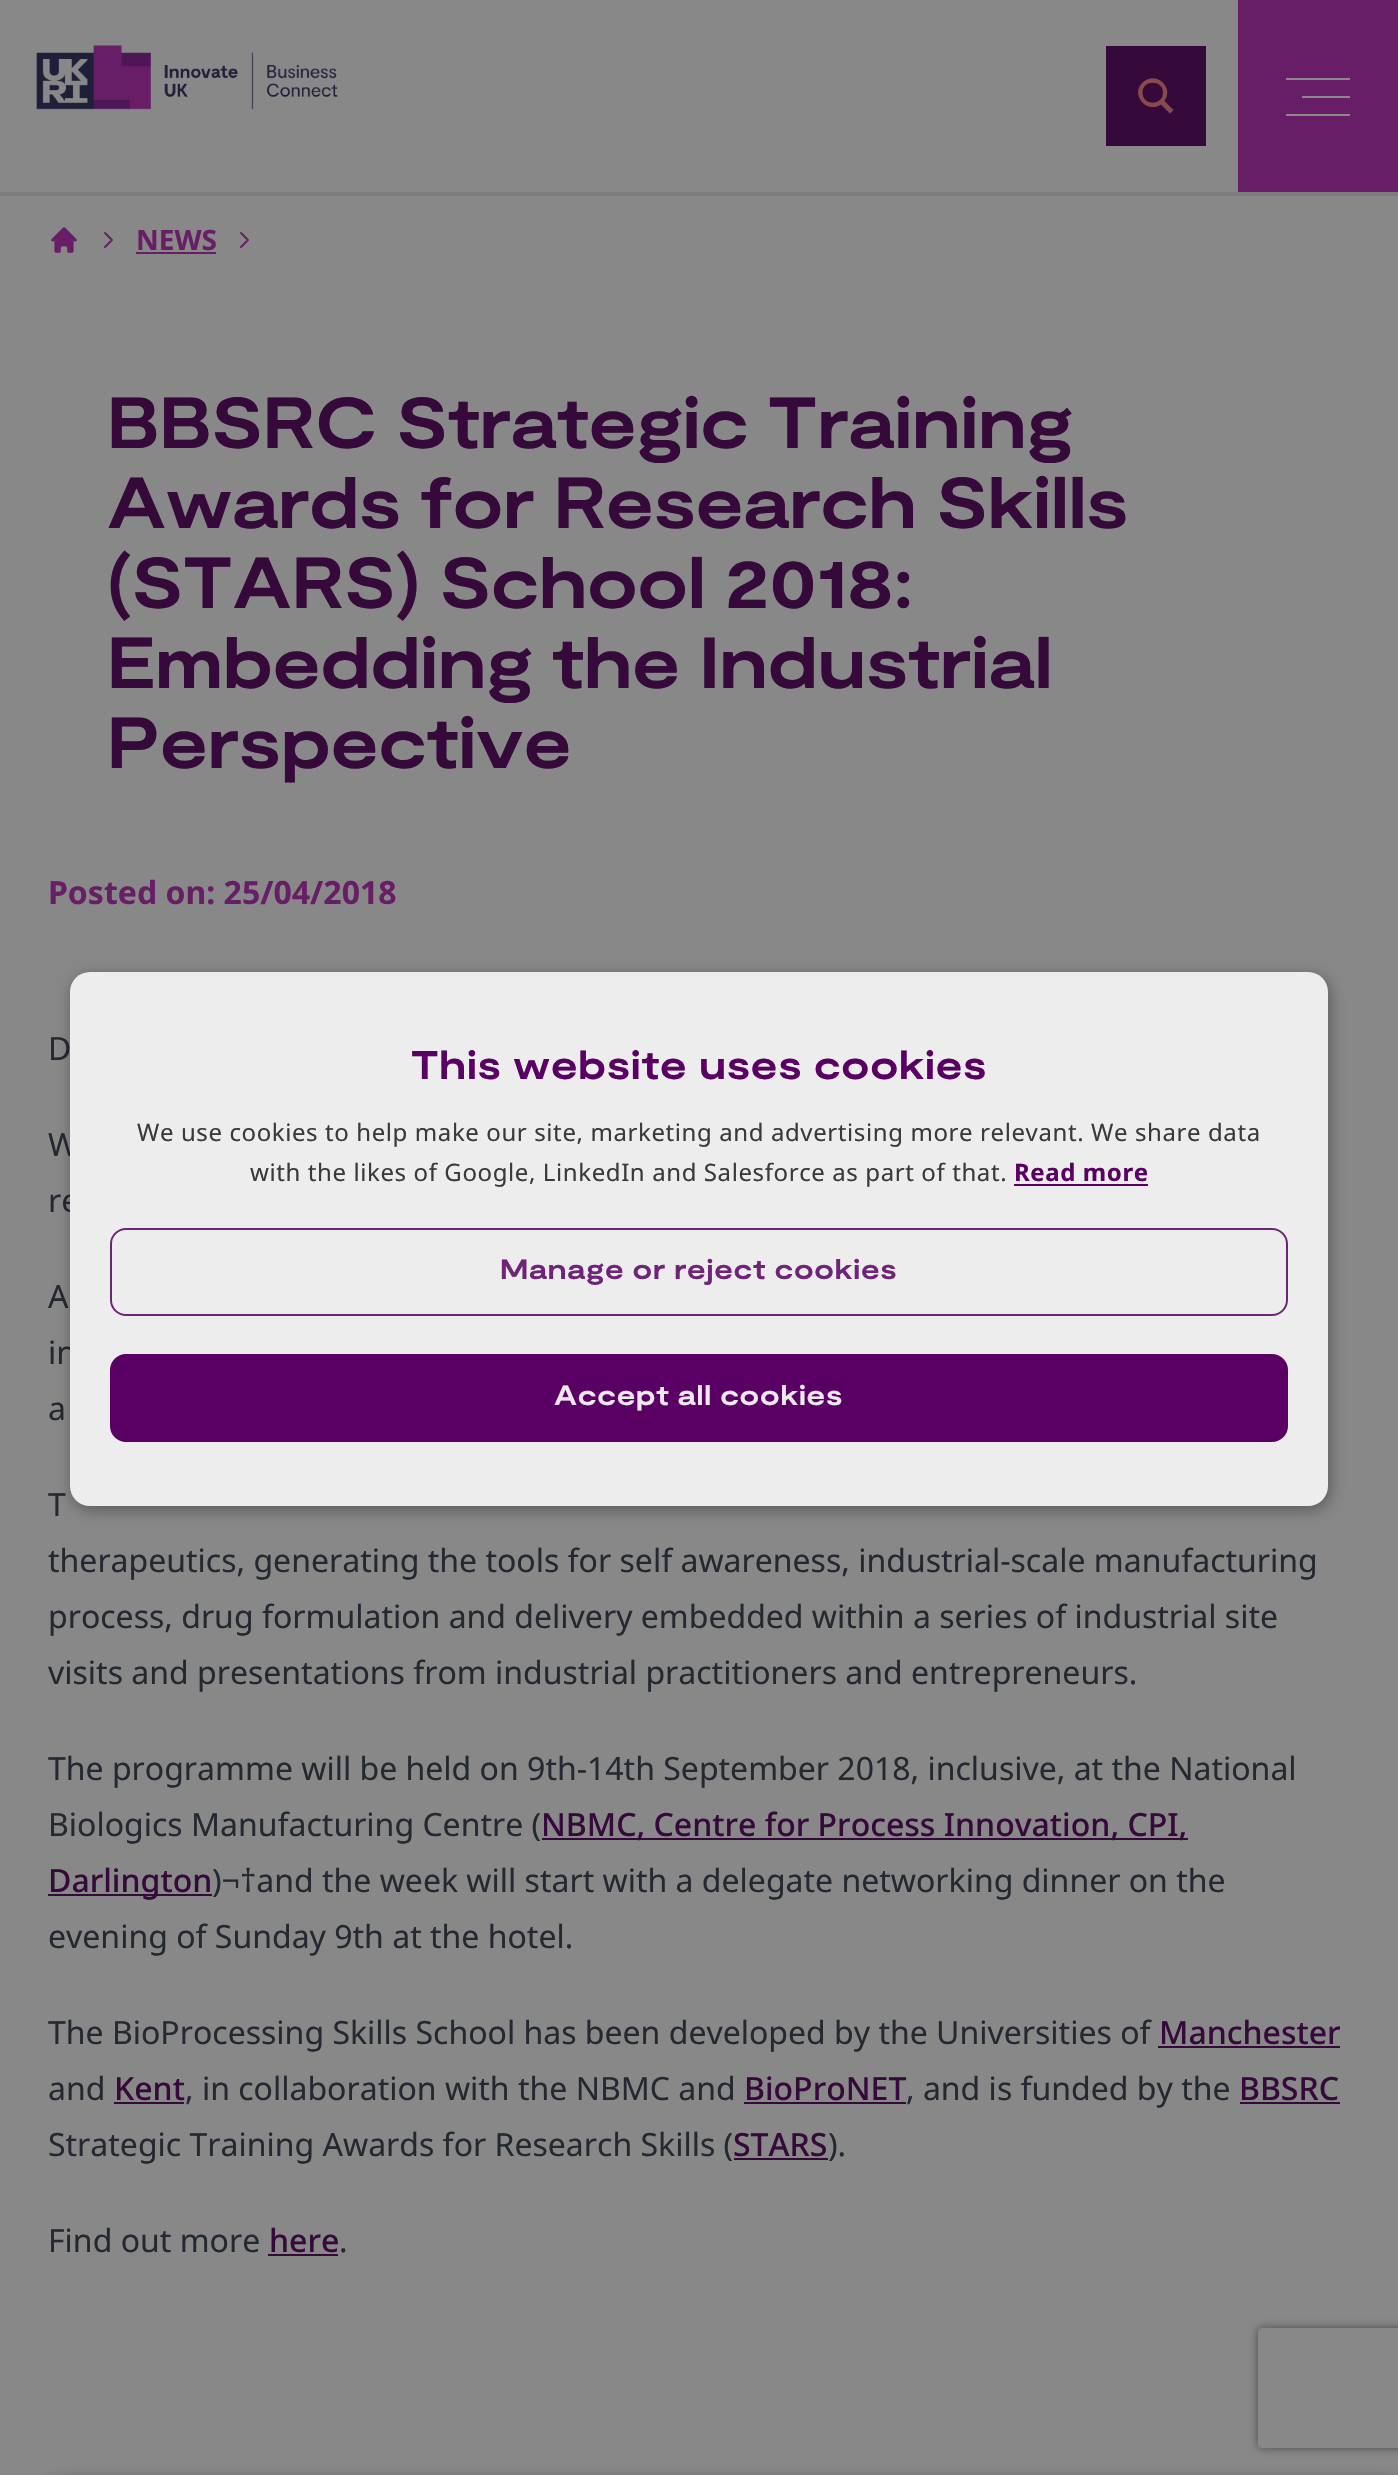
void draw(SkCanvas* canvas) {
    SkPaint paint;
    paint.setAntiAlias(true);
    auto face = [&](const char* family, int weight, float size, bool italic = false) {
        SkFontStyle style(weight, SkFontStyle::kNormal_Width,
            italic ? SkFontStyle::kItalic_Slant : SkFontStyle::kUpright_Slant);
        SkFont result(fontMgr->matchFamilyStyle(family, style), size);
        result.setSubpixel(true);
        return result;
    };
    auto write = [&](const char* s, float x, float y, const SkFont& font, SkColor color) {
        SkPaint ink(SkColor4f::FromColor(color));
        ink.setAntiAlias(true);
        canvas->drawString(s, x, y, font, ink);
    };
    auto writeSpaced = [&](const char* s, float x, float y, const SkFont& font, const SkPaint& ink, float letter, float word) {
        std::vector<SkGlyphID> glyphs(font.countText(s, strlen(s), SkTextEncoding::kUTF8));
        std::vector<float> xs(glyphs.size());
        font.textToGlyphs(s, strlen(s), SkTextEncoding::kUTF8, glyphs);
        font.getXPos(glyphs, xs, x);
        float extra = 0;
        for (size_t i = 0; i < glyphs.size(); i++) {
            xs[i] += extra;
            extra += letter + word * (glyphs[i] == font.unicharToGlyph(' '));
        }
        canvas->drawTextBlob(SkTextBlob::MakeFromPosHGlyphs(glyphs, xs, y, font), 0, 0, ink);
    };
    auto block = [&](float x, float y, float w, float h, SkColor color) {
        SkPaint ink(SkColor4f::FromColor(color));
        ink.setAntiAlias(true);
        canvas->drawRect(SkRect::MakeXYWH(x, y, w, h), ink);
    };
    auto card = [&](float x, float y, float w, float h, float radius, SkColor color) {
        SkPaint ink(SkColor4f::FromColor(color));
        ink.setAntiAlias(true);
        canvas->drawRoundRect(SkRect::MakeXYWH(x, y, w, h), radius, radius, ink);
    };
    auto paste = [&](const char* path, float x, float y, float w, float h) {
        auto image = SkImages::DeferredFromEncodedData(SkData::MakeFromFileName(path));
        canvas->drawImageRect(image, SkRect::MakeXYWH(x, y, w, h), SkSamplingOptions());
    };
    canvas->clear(SkColorSetRGB(136, 136, 136));
    block(0, 192, 1398, 4, SkColorSetRGB(123, 124, 126));
    paste("pic1.png", 36, 45, 302, 65);
    block(1106, 46, 100, 100, SkColorSetRGB(54, 9, 59));
    paint.setColor(SkColorSetRGB(136, 74, 74));
    canvas->drawPath(SkPathBuilder().moveTo(1173.5f, 110).lineTo(1164.5f, 101).cubicTo(1174.5f, 87, 1155.5f, 70, 1142.5f, 82.5f).cubicTo(1130, 95, 1147, 114, 1161, 104.5f).lineTo(1170, 113.5f).close().moveTo(1142.5f, 92.5f).cubicTo(1142.5f, 79.5f, 1163, 79.5f, 1163, 92.5f).cubicTo(1163, 106, 1142.5f, 106, 1142.5f, 92.5f).close().detach(), paint);
    block(1238, 0, 160, 192, SkColorSetRGB(104, 30, 102));
    block(1286, 78, 64, 2, SkColorSetRGB(136, 136, 136));
    block(1302, 96, 48, 2, SkColorSetRGB(136, 136, 136));
    block(1286, 114, 64, 2, SkColorSetRGB(136, 136, 136));
    paste("pic2.png", 51, 227, 26, 26);
    paint.setStyle(SkPaint::kStroke_Style);
    paint.setStrokeWidth(2);
    paint.setStrokeCap(SkPaint::kRound_Cap);
    paint.setStrokeJoin(SkPaint::kRound_Join);
    paint.setColor(SkColorSetRGB(104, 30, 102));
    canvas->drawPath(SkPathBuilder().moveTo(105, 233).lineTo(112, 240).lineTo(105, 247).detach(), paint);
    auto kFont1 = face("Noto Sans", 700, 28);
    write("NEWS", 136, 250, kFont1, SkColorSetRGB(104, 30, 102));
    block(136, 252, 80, 2, SkColorSetRGB(104, 30, 102));
    canvas->drawPath(SkPathBuilder().moveTo(241, 233).lineTo(248, 240).lineTo(241, 247).detach(), paint);
    auto kFont2 = face("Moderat", 700, 72);
    write("BBSRC Strategic Training", 107, 448, kFont2, SkColorSetRGB(54, 9, 59));
    write("Awards for Research Skills", 107, 528, kFont2, SkColorSetRGB(54, 9, 59));
    write("(STARS) School 2018:", 107, 608, kFont2, SkColorSetRGB(54, 9, 59));
    write("Embedding the Industrial", 107, 688, kFont2, SkColorSetRGB(54, 9, 59));
    write("Perspective", 107, 768, kFont2, SkColorSetRGB(54, 9, 59));
    auto kFont3 = face("Noto Sans", 700, 32);
    write("Posted on: 25/04/2018", 48, 904, kFont3, SkColorSetRGB(104, 30, 102));
    auto kFont4 = face("Noto Sans", 400, 32);
    write("D", 48, 1060, kFont4, SkColorSetRGB(36, 41, 49));
    write("W", 48, 1156, kFont4, SkColorSetRGB(36, 41, 49));
    write("re", 48, 1212, kFont4, SkColorSetRGB(36, 41, 49));
    write("A", 48, 1308, kFont4, SkColorSetRGB(36, 41, 49));
    write("in", 48, 1364, kFont4, SkColorSetRGB(36, 41, 49));
    write("a", 48, 1420, kFont4, SkColorSetRGB(36, 41, 49));
    write("T", 48, 1516, kFont4, SkColorSetRGB(36, 41, 49));
    write("therapeutics, generating the tools for self awareness, industrial-scale manufacturing", 48, 1572, kFont4, SkColorSetRGB(36, 41, 49));
    write("process, drug formulation and delivery embedded within a series of industrial site", 48, 1628, kFont4, SkColorSetRGB(36, 41, 49));
    write("visits and presentations from industrial practitioners and entrepreneurs.", 48, 1684, kFont4, SkColorSetRGB(36, 41, 49));
    write("The programme will be held on 9th-14th September 2018, inclusive, at the National", 48, 1780, kFont4, SkColorSetRGB(36, 41, 49));
    write("Biologics Manufacturing Centre (", 48, 1836, kFont4, SkColorSetRGB(36, 41, 49));
    block(542, 1838, 646, 2, SkColorSetRGB(54, 9, 59));
    auto kFont5 = face("Noto Sans", 500, 32);
    write("NBMC, Centre for Process Innovation, CPI,", 541, 1836, kFont5, SkColorSetRGB(54, 9, 59));
    block(48, 1894, 164, 2, SkColorSetRGB(54, 9, 59));
    write("Darlington", 48, 1892, kFont5, SkColorSetRGB(54, 9, 59));
    write(")¬†and the week will start with a delegate networking dinner on the", 212, 1892, kFont4, SkColorSetRGB(36, 41, 49));
    write("evening of Sunday 9th at the hotel.", 48, 1948, kFont4, SkColorSetRGB(36, 41, 49));
    write("The BioProcessing Skills School has been developed by the Universities of", 48, 2044, kFont4, SkColorSetRGB(36, 41, 49));
    write("Manchester", 1159, 2044, kFont5, SkColorSetRGB(54, 9, 59));
    block(1158, 2046, 182, 2, SkColorSetRGB(54, 9, 59));
    write("and", 48, 2100, kFont4, SkColorSetRGB(36, 41, 49));
    write("Kent", 114, 2100, kFont5, SkColorSetRGB(54, 9, 59));
    block(114, 2102, 70, 2, SkColorSetRGB(54, 9, 59));
    write(", in collaboration with the NBMC and", 185, 2100, kFont4, SkColorSetRGB(36, 41, 49));
    write("BioProNET", 744, 2100, kFont5, SkColorSetRGB(54, 9, 59));
    block(744, 2102, 162, 2, SkColorSetRGB(54, 9, 59));
    write(", and is funded by the", 906, 2100, kFont4, SkColorSetRGB(36, 41, 49));
    write("BBSRC", 1239, 2100, kFont5, SkColorSetRGB(54, 9, 59));
    block(1240, 2102, 100, 2, SkColorSetRGB(54, 9, 59));
    write("Strategic Training Awards for Research Skills (", 48, 2156, kFont4, SkColorSetRGB(36, 41, 49));
    write("STARS", 733, 2156, kFont5, SkColorSetRGB(54, 9, 59));
    block(734, 2158, 94, 2, SkColorSetRGB(54, 9, 59));
    write(").", 828, 2156, kFont4, SkColorSetRGB(36, 41, 49));
    write("Find out more", 48, 2252, kFont4, SkColorSetRGB(36, 41, 49));
    write("here", 269, 2252, kFont5, SkColorSetRGB(54, 9, 59));
    block(268, 2254, 70, 2, SkColorSetRGB(54, 9, 59));
    write(".", 339, 2252, kFont4, SkColorSetRGB(36, 41, 49));
    paint.setStyle(SkPaint::kFill_Style);
    paint.setColor(SkColorSetARGB(89, 0, 0, 0));
    paint.setMaskFilter(SkMaskFilter::MakeBlur(kNormal_SkBlurStyle, 8));
    canvas->drawRoundRect(SkRect::MakeXYWH(72, 976, 1258, 534), 20, 20, paint);
    paint.setMaskFilter(nullptr);
    card(70, 972, 1258, 534, 20, SkColorSetRGB(237, 237, 237));
    auto kFont6 = face("Moderat", 700, 40);
    paint.setColor(SkColorSetRGB(90, 0, 100));
    writeSpaced("This website uses cookies", 411, 1079, kFont6, paint, 0.8f, 0);
    auto kFont7 = face("Noto Sans", 400, 24);
    paint.setColor(SkColorSetRGB(58, 58, 58));
    writeSpaced("We use cookies to help make our site, marketing and advertising more relevant. We share data", 137, 1141, kFont7, paint, 0.6f, 0);
    writeSpaced("with the likes of Google, LinkedIn and Salesforce as part of that.", 250, 1181, kFont7, paint, 0.6f, 0);
    auto kFont8 = face("Noto Sans", 700, 24);
    paint.setColor(SkColorSetRGB(90, 0, 100));
    writeSpaced("Read more", 1014, 1181, kFont8, paint, 0.6f, 0);
    block(1014, 1184, 134, 2, SkColorSetRGB(90, 0, 100));
    paint.setStyle(SkPaint::kStroke_Style);
    paint.setStrokeCap(SkPaint::kButt_Cap);
    paint.setStrokeJoin(SkPaint::kMiter_Join);
    paint.setColor(SkColorSetRGB(112, 36, 121));
    canvas->drawRoundRect(SkRect::MakeXYWH(111, 1229, 1176, 86), 15, 15, paint);
    auto kFont9 = face("Moderat", 700, 28);
    paint.setStyle(SkPaint::kFill_Style);
    writeSpaced("Manage or reject cookies", 500, 1279, kFont9, paint, 0.8f, 0);
    paint.setColor(SkColorSetRGB(90, 0, 100));
    canvas->drawRoundRect(SkRect::MakeXYWH(111, 1355, 1176, 86), 15, 15, paint);
    paint.setStyle(SkPaint::kStroke_Style);
    canvas->drawRoundRect(SkRect::MakeXYWH(111, 1355, 1176, 86), 15, 15, paint);
    paint.setStyle(SkPaint::kFill_Style);
    paint.setColor(SkColorSetRGB(240, 232, 241));
    writeSpaced("Accept all cookies", 554, 1405, kFont9, paint, 0.8f, 0);
    canvas->save();
    canvas->clipPath(SkPathBuilder(SkPathFillType::kEvenOdd).moveTo(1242, 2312).lineTo(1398, 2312).lineTo(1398, 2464).lineTo(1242, 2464).close().moveTo(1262, 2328).lineTo(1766, 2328).cubicTo(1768, 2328, 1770, 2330, 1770, 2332).lineTo(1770, 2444).cubicTo(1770, 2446, 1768, 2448, 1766, 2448).lineTo(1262, 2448).cubicTo(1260, 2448, 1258, 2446, 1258, 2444).lineTo(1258, 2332).cubicTo(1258, 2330, 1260, 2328, 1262, 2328).close().detach(), true);
    paint.setColor(SkColorSetRGB(73, 73, 73));
    paint.setMaskFilter(SkMaskFilter::MakeBlur(kNormal_SkBlurStyle, 5));
    canvas->drawRoundRect(SkRect::MakeXYWH(1258, 2328, 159, 120), 4, 4, paint);
    paint.setMaskFilter(nullptr);
    canvas->restore();
    paint.setColor(SkColorSetARGB(191, 9, 9, 9));
    paint.setMaskFilter(SkMaskFilter::MakeBlur(kNormal_SkBlurStyle, 10));
    canvas->drawRect(SkRect::MakeXYWH(54, 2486, 1344, 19), paint);
    paint.setMaskFilter(nullptr);
}
